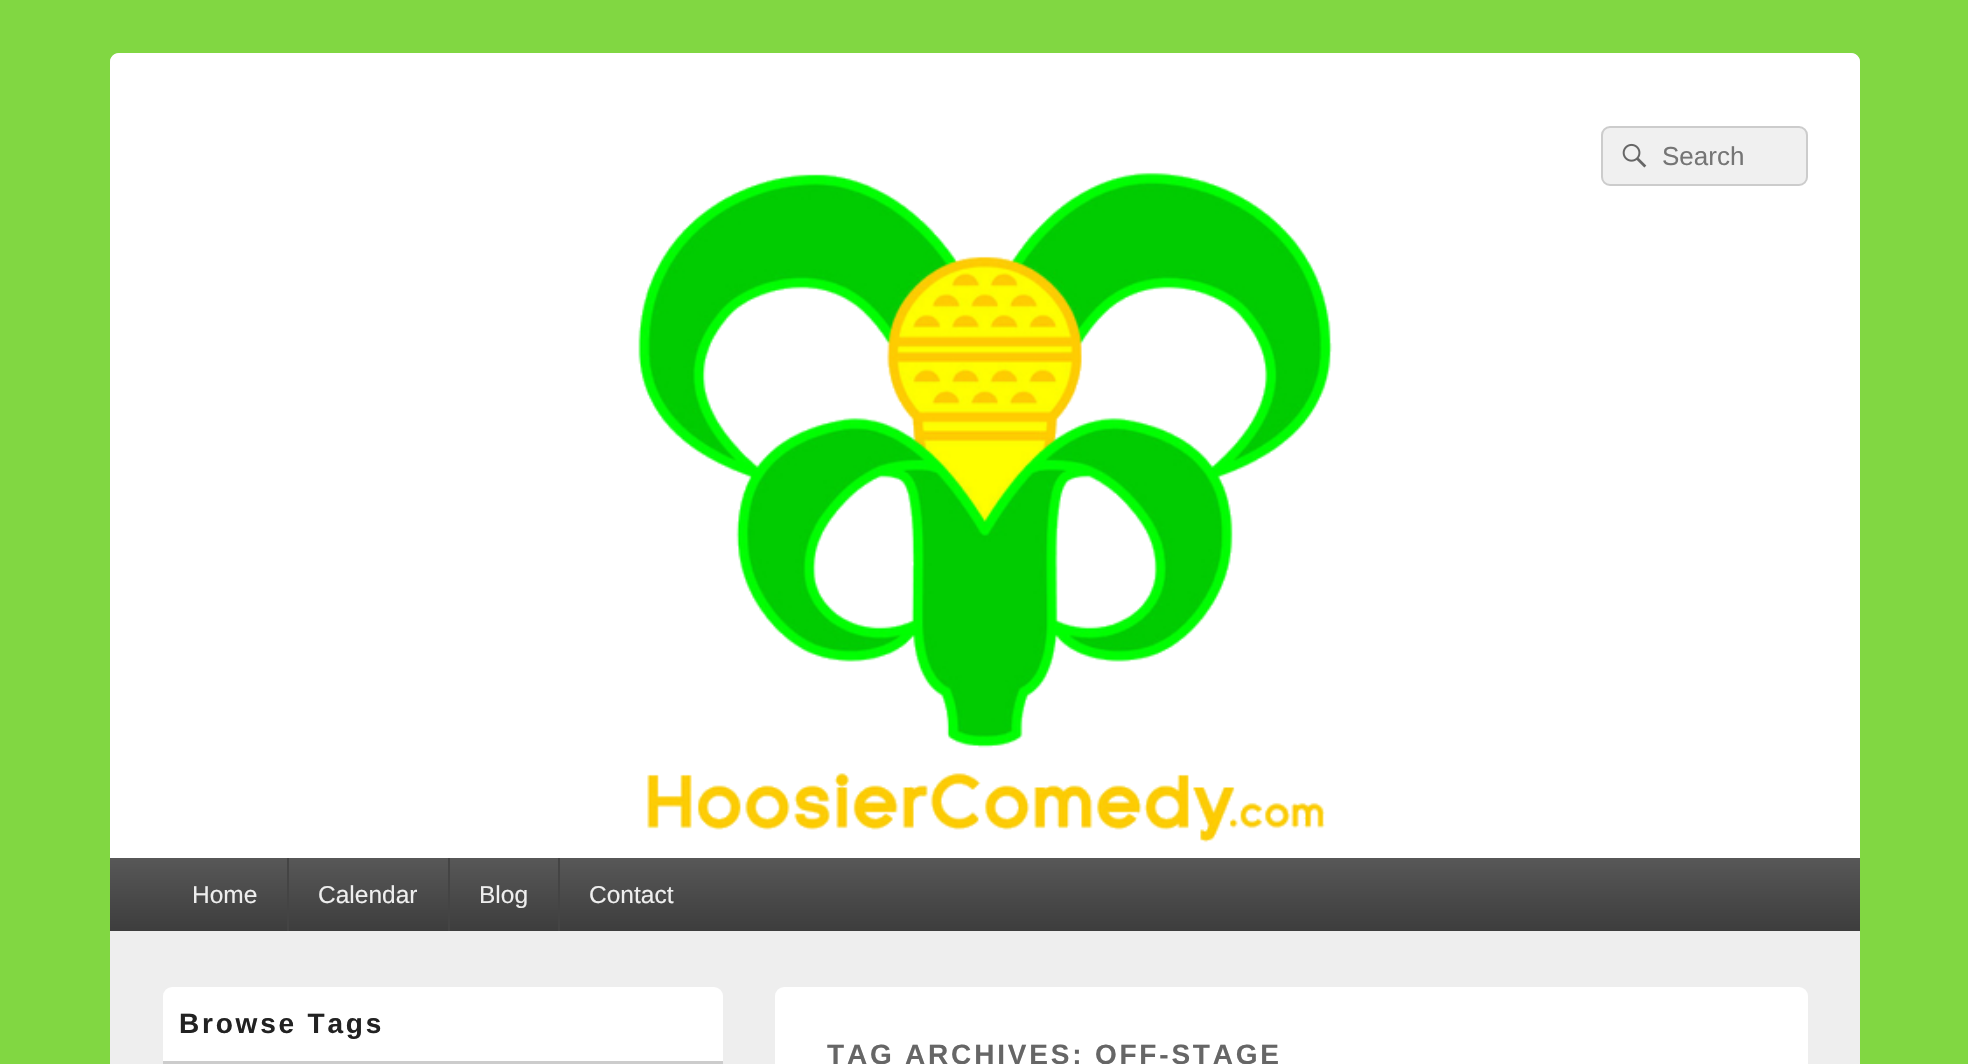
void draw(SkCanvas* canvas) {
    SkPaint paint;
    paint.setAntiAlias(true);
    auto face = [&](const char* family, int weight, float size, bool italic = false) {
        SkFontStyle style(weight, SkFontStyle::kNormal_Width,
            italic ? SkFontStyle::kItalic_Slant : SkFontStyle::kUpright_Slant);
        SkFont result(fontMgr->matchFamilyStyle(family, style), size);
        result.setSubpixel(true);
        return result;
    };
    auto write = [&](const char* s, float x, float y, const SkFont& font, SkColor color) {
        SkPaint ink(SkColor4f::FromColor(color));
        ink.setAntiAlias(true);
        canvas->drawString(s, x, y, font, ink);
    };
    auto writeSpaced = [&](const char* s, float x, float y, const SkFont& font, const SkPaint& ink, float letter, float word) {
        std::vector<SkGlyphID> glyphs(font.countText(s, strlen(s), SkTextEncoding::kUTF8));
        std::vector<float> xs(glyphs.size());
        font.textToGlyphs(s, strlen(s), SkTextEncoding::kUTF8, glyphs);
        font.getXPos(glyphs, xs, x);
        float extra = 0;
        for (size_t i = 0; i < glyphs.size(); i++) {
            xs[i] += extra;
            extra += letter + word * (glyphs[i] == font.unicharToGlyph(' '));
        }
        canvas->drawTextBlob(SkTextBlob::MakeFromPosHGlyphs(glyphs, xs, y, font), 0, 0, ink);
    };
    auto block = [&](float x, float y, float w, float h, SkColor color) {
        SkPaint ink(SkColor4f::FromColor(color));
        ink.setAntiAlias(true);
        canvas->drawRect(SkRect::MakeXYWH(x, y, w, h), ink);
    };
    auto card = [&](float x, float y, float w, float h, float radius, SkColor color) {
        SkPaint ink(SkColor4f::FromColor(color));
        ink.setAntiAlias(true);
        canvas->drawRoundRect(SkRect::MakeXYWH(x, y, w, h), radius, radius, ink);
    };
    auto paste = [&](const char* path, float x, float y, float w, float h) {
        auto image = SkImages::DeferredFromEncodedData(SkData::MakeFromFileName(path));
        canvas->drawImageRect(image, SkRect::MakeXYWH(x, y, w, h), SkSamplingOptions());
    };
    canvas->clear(SkColorSetRGB(129, 215, 66));
    card(110, 53, 1750, 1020, 9, SkColorSetRGB(238, 238, 238));
    paint.setColor(SK_ColorWHITE);
    canvas->drawPath(SkPathBuilder().moveTo(119, 53).lineTo(1851, 53).cubicTo(1856, 53, 1860, 57, 1860, 62).lineTo(1860, 858).lineTo(110, 858).lineTo(110, 62).cubicTo(110, 57, 114, 53, 119, 53).close().detach(), paint);
    paint.setColor(SkColorSetRGB(240, 240, 240));
    canvas->drawRoundRect(SkRect::MakeXYWH(1602, 127, 205, 58), 8, 8, paint);
    paint.setStyle(SkPaint::kStroke_Style);
    paint.setStrokeWidth(2);
    paint.setColor(SkColorSetRGB(204, 204, 204));
    canvas->drawRoundRect(SkRect::MakeXYWH(1602, 127, 205, 58), 8, 8, paint);
    paste("pic1.png", 1622, 143, 25, 25);
    auto kFont1 = face("Liberation Sans", 400, 26);
    write("Search", 1662, 165, kFont1, SkColorSetRGB(117, 117, 117));
    paste("pic2.png", 638, 172, 695, 671);
    paint.setStyle(SkPaint::kFill_Style);
    {
        const SkColor colors[] = {SkColorSetRGB(88, 88, 88), SkColorSetRGB(61, 61, 61)};
        const float stops[] = {0, 1};
        const SkPoint ends[] = {{985, 857}, {985, 931}};
        paint.setShader(SkGradientShader::MakeLinear(ends, colors, stops, 2, SkTileMode::kClamp));
        paint.setAlpha(255);
    }
    canvas->drawRect(SkRect::MakeXYWH(110, 858, 1750, 73), paint);
    auto kFont2 = face("Liberation Sans", 400, 24.5f);
    write("Home", 192, 903, kFont2, SkColorSetRGB(238, 238, 238));
    block(287, 858, 2, 73, SkColorSetRGB(68, 68, 68));
    write("Calendar", 318, 903, kFont2, SkColorSetRGB(238, 238, 238));
    block(448, 858, 2, 73, SkColorSetRGB(68, 68, 68));
    write("Blog", 479, 903, kFont2, SkColorSetRGB(238, 238, 238));
    block(558, 858, 2, 73, SkColorSetRGB(68, 68, 68));
    write("Contact", 589, 903, kFont2, SkColorSetRGB(238, 238, 238));
    card(163, 987, 560, 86, 9, SK_ColorWHITE);
    block(163, 1061, 560, 3, SkColorSetRGB(204, 204, 204));
    auto kFont3 = face("Liberation Sans", 700, 28);
    paint.setShader(nullptr);
    paint.setColor(SkColorSetRGB(34, 34, 34));
    writeSpaced("Browse Tags", 179, 1033, kFont3, paint, 2.8f, 0);
    card(775, 987, 1033, 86, 9, SK_ColorWHITE);
    paint.setColor(SkColorSetRGB(102, 102, 102));
    writeSpaced("TAG ARCHIVES: OFF-STAGE", 827, 1064, kFont3, paint, 2.8f, 0);
}
